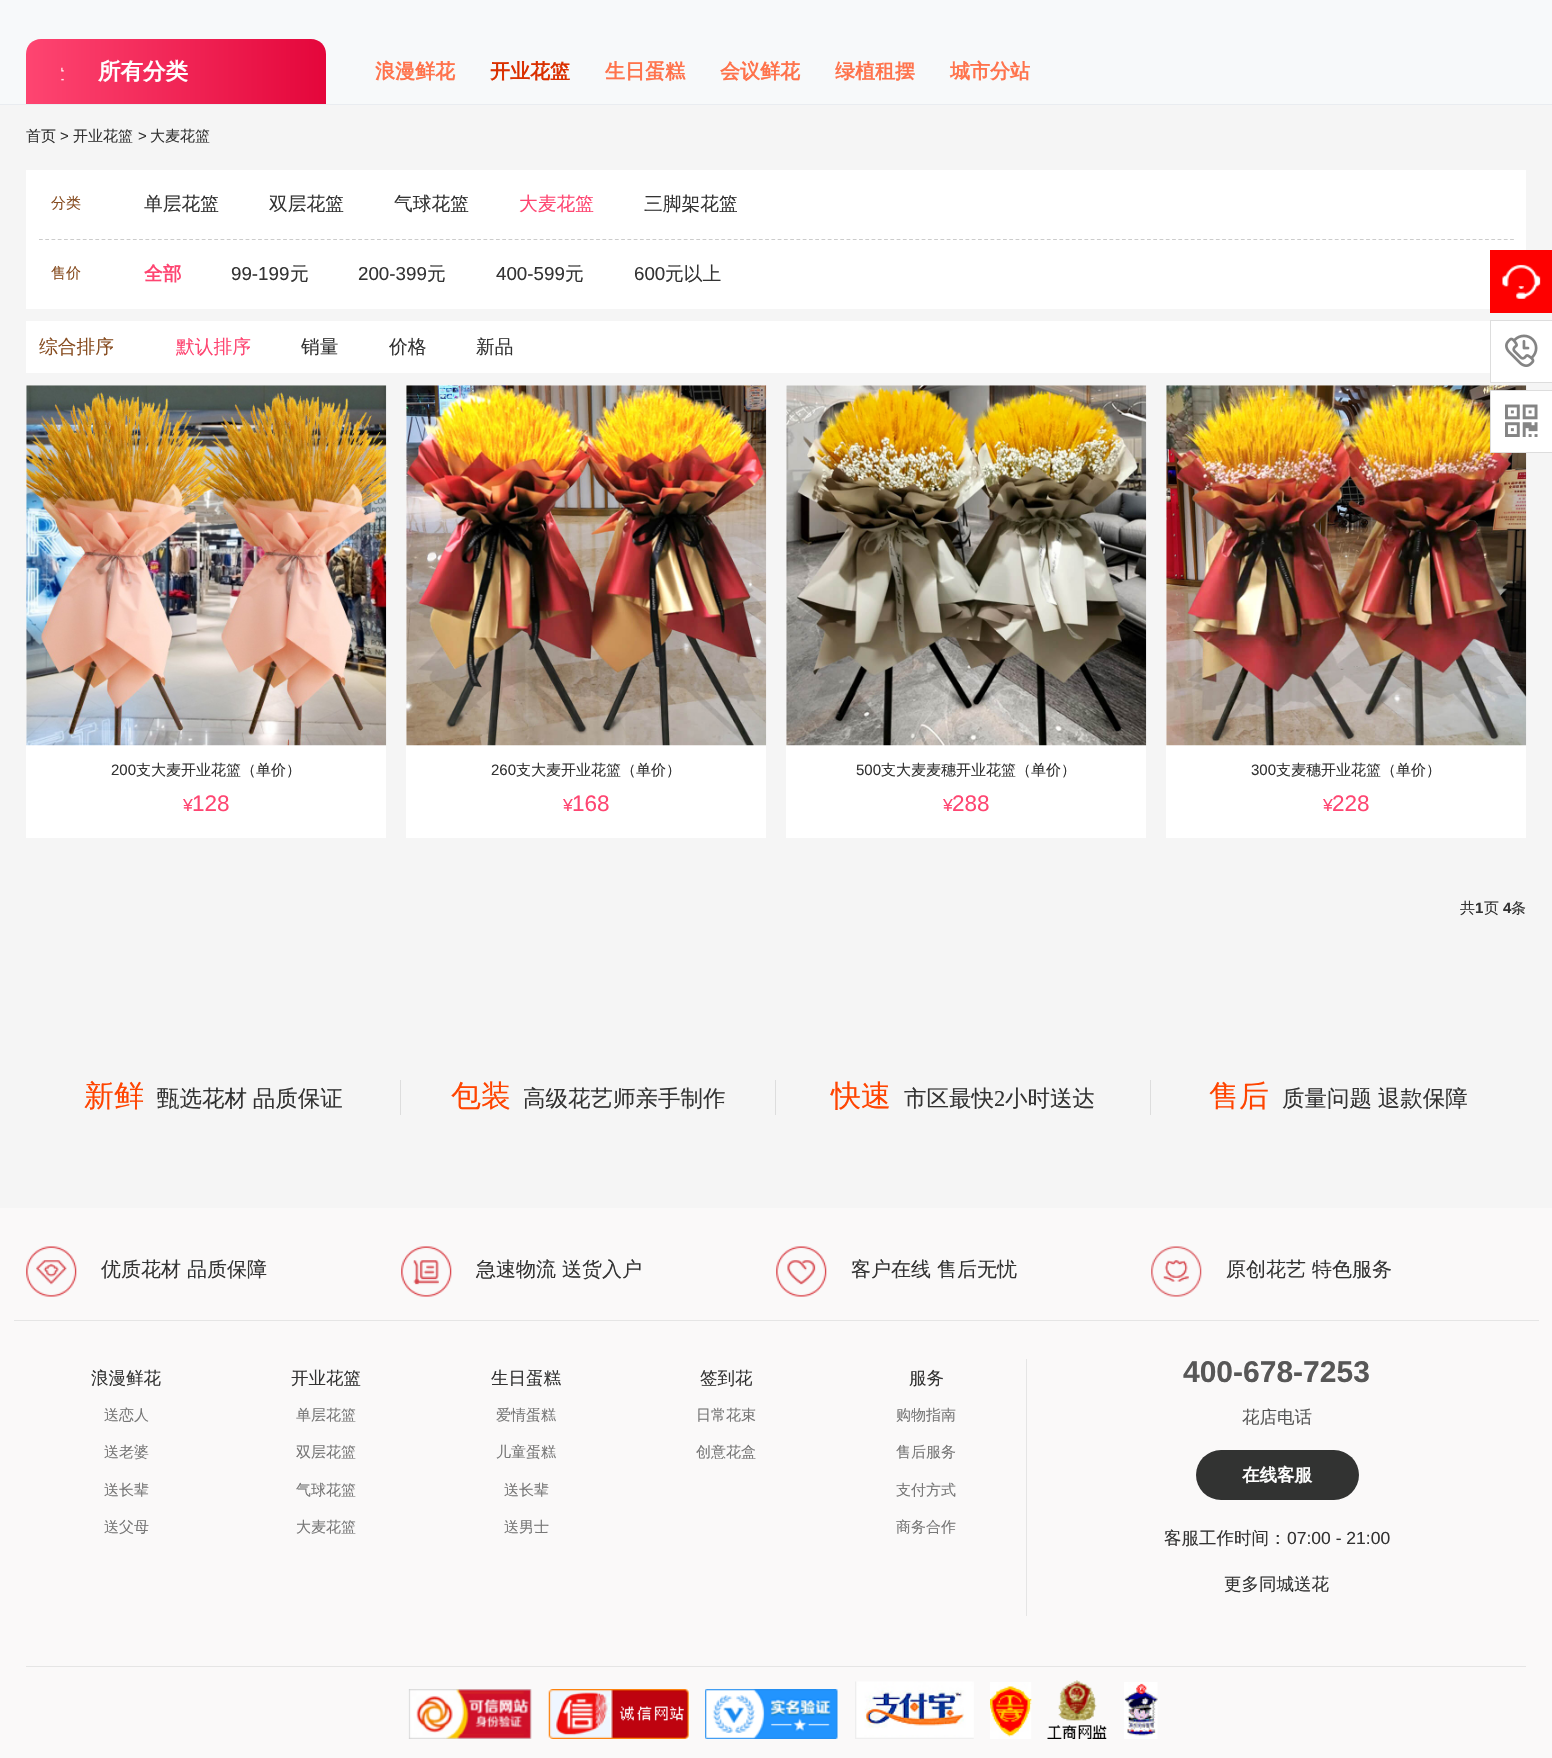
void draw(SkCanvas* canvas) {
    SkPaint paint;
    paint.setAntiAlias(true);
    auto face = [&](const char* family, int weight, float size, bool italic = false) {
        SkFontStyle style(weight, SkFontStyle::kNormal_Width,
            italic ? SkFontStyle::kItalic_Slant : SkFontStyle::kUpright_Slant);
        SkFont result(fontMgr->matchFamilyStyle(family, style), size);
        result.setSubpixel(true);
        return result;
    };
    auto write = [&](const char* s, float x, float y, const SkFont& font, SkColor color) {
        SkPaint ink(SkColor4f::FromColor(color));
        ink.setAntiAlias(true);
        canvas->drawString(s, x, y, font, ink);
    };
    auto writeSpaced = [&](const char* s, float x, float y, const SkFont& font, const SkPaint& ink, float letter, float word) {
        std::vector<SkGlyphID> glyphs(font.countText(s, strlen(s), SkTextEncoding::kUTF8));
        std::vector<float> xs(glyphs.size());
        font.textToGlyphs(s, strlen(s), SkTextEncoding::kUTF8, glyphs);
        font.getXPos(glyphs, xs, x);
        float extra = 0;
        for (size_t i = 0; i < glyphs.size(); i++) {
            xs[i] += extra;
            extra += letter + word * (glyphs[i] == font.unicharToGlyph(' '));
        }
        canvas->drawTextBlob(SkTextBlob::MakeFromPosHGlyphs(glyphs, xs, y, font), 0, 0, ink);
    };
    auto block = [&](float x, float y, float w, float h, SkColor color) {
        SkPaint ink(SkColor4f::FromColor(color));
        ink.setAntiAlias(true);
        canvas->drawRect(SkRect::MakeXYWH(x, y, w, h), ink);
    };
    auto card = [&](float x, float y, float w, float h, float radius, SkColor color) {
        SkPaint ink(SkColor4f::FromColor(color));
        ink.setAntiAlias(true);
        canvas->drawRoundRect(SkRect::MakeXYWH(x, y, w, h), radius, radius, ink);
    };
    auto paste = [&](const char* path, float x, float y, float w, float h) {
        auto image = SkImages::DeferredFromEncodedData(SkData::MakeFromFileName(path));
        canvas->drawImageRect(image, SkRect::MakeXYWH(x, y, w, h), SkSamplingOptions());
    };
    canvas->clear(SkColorSetRGB(247, 249, 250));
    block(0, 104, 1552, 1, SkColorSetRGB(233, 236, 240));
    {
        const SkColor colors[] = {SkColorSetRGB(254, 69, 113), SkColorSetRGB(228, 6, 59)};
        const float stops[] = {0, 1};
        const SkPoint ends[] = {{26, 71}, {326, 71}};
        paint.setShader(SkGradientShader::MakeLinear(ends, colors, stops, 2, SkTileMode::kClamp));
        paint.setAlpha(255);
    }
    canvas->drawPath(SkPathBuilder().moveTo(41, 39).lineTo(311, 39).cubicTo(319.5f, 39, 326, 45.5f, 326, 54).lineTo(326, 104).lineTo(26, 104).lineTo(26, 54).cubicTo(26, 45.5f, 32.5f, 39, 41, 39).close().detach(), paint);
    paste("pic1.png", 61, 67, 3, 14);
    auto kFont1 = face("WenQuanYi Zen Hei", 700, 22.5f);
    write("所有分类", 98, 79, kFont1, SK_ColorWHITE);
    auto kFont2 = face("WenQuanYi Zen Hei", 700, 20);
    write("浪漫鲜花", 375, 78, kFont2, SkColorSetRGB(255, 115, 76));
    write("开业花篮", 490, 78, kFont2, SkColorSetRGB(218, 48, 0));
    write("生日蛋糕", 605, 78, kFont2, SkColorSetRGB(255, 115, 76));
    write("会议鲜花", 720, 78, kFont2, SkColorSetRGB(255, 115, 76));
    write("绿植租摆", 835, 78, kFont2, SkColorSetRGB(255, 115, 76));
    write("城市分站", 950, 78, kFont2, SkColorSetRGB(255, 115, 76));
    block(0, 105, 1552, 1103, SkColorSetRGB(245, 245, 245));
    auto kFont3 = face("WenQuanYi Zen Hei", 500, 15);
    write("首页", 26, 141, kFont3, SkColorSetRGB(51, 51, 51));
    auto kFont4 = face("Liberation Sans", 400, 15);
    write(">", 60, 141, kFont4, SkColorSetRGB(51, 51, 51));
    write("开业花篮", 73, 141, kFont3, SkColorSetRGB(51, 51, 51));
    write(">", 138, 141, kFont4, SkColorSetRGB(51, 51, 51));
    write("大麦花篮", 150, 141, kFont3, SkColorSetRGB(51, 51, 51));
    block(26, 170, 1500, 139, SK_ColorWHITE);
    paint.setStyle(SkPaint::kStroke_Style);
    paint.setStrokeWidth(1.2f);
    paint.setShader(nullptr);
    paint.setColor(SkColorSetRGB(204, 204, 204));
    paint.setPathEffect(SkDashPathEffect::Make({{3.75f, 2.51f}}, 0));
    canvas->drawPath(SkPathBuilder().moveTo(39, 239.5f).lineTo(1514, 239.5f).detach(), paint);
    paint.setPathEffect(nullptr);
    write("分类", 51, 208, kFont3, SkColorSetRGB(136, 78, 34));
    auto kFont5 = face("WenQuanYi Zen Hei", 500, 18.75f);
    write("单层花篮", 144, 210, kFont5, SkColorSetRGB(51, 51, 51));
    write("双层花篮", 269, 210, kFont5, SkColorSetRGB(51, 51, 51));
    write("气球花篮", 394, 210, kFont5, SkColorSetRGB(51, 51, 51));
    write("大麦花篮", 519, 210, kFont5, SkColorSetRGB(254, 69, 113));
    write("三脚架花篮", 644, 210, kFont5, SkColorSetRGB(51, 51, 51));
    write("售价", 51, 278, kFont3, SkColorSetRGB(136, 78, 34));
    auto kFont6 = face("WenQuanYi Zen Hei", 700, 18.75f);
    write("全部", 144, 280, kFont6, SkColorSetRGB(254, 69, 113));
    auto kFont7 = face("Liberation Sans", 400, 18.75f);
    write("99-199", 231, 280, kFont7, SkColorSetRGB(51, 51, 51));
    write("元", 290, 280, kFont5, SkColorSetRGB(51, 51, 51));
    write("200-399", 358, 280, kFont7, SkColorSetRGB(51, 51, 51));
    write("元", 427, 280, kFont5, SkColorSetRGB(51, 51, 51));
    write("400-599", 496, 280, kFont7, SkColorSetRGB(51, 51, 51));
    write("元", 565, 280, kFont5, SkColorSetRGB(51, 51, 51));
    write("600", 634, 280, kFont7, SkColorSetRGB(51, 51, 51));
    write("元以上", 665, 280, kFont5, SkColorSetRGB(51, 51, 51));
    block(26, 321, 1464, 52, SK_ColorWHITE);
    write("综合排序", 39, 353, kFont5, SkColorSetRGB(136, 78, 34));
    write("默认排序", 176, 353, kFont5, SkColorSetRGB(254, 69, 113));
    write("销量", 301, 353, kFont5, SkColorSetRGB(51, 51, 51));
    write("价格", 389, 353, kFont5, SkColorSetRGB(51, 51, 51));
    write("新品", 476, 353, kFont5, SkColorSetRGB(51, 51, 51));
    block(26, 385, 360, 453, SK_ColorWHITE);
    paste("pic2.png", 26, 385, 361, 361);
    write("200", 111, 775, kFont4, SkColorSetRGB(51, 51, 51));
    write("支大麦开业花篮（单价）", 136, 775, kFont3, SkColorSetRGB(51, 51, 51));
    auto kFont8 = face("Liberation Sans", 400, 17.5f);
    write("¥", 183, 811, kFont8, SkColorSetRGB(254, 69, 113));
    auto kFont9 = face("Liberation Sans", 400, 22.5f);
    write("128", 192, 811, kFont9, SkColorSetRGB(254, 69, 113));
    block(406, 385, 360, 453, SK_ColorWHITE);
    paste("pic3.png", 406, 385, 361, 361);
    write("260", 491, 775, kFont4, SkColorSetRGB(51, 51, 51));
    write("支大麦开业花篮（单价）", 516, 775, kFont3, SkColorSetRGB(51, 51, 51));
    write("¥", 563, 811, kFont8, SkColorSetRGB(254, 69, 113));
    write("168", 572, 811, kFont9, SkColorSetRGB(254, 69, 113));
    block(786, 385, 360, 453, SK_ColorWHITE);
    paste("pic4.png", 786, 385, 361, 361);
    write("500", 856, 775, kFont4, SkColorSetRGB(51, 51, 51));
    write("支大麦麦穗开业花篮（单价）", 881, 775, kFont3, SkColorSetRGB(51, 51, 51));
    write("¥", 943, 811, kFont8, SkColorSetRGB(254, 69, 113));
    write("288", 952, 811, kFont9, SkColorSetRGB(254, 69, 113));
    block(1166, 385, 360, 453, SK_ColorWHITE);
    paste("pic5.png", 1166, 385, 361, 361);
    write("300", 1251, 775, kFont4, SkColorSetRGB(51, 51, 51));
    write("支麦穗开业花篮（单价）", 1276, 775, kFont3, SkColorSetRGB(51, 51, 51));
    write("¥", 1323, 811, kFont8, SkColorSetRGB(254, 69, 113));
    write("228", 1332, 811, kFont9, SkColorSetRGB(254, 69, 113));
    write("共", 1460, 913, kFont3, SkColorSetRGB(51, 51, 51));
    auto kFont10 = face("Liberation Sans", 700, 15);
    write("1", 1475, 913, kFont10, SkColorSetRGB(51, 51, 51));
    write("页", 1484, 913, kFont3, SkColorSetRGB(51, 51, 51));
    write("4", 1503, 913, kFont10, SkColorSetRGB(51, 51, 51));
    write("条", 1511, 913, kFont3, SkColorSetRGB(51, 51, 51));
    block(1490, 250, 62, 63, SkColorSetRGB(254, 0, 0));
    paste("pic6.png", 1502, 264, 39, 35);
    paint.setStyle(SkPaint::kFill_Style);
    paint.setColor(SK_ColorWHITE);
    canvas->drawRect(SkRect::MakeXYWH(1490.5f, 320.5f, 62, 62), paint);
    paint.setStyle(SkPaint::kStroke_Style);
    paint.setStrokeWidth(1);
    paint.setColor(SkColorSetRGB(221, 221, 221));
    canvas->drawRect(SkRect::MakeXYWH(1490.5f, 320.5f, 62, 62), paint);
    paste("pic7.png", 1505, 334, 33, 33);
    paint.setStyle(SkPaint::kFill_Style);
    paint.setColor(SK_ColorWHITE);
    canvas->drawRect(SkRect::MakeXYWH(1490.5f, 390.5f, 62, 62), paint);
    paint.setStyle(SkPaint::kStroke_Style);
    paint.setColor(SkColorSetRGB(221, 221, 221));
    canvas->drawRect(SkRect::MakeXYWH(1490.5f, 390.5f, 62, 62), paint);
    paste("pic8.png", 1505, 404, 33, 33);
    auto kFont11 = face("WenQuanYi Zen Hei", 500, 30);
    write("新鲜", 84, 1106, kFont11, SkColorSetRGB(255, 68, 0));
    auto kFont12 = face("WenQuanYi Zen Hei", 500, 22.5f);
    paint.setStyle(SkPaint::kFill_Style);
    paint.setColor(SkColorSetRGB(51, 51, 51));
    writeSpaced("甄选花材 品质保证", 157, 1106, kFont12, paint, 0, -1);
    block(400, 1080, 1, 35, SkColorSetRGB(221, 221, 221));
    write("包装", 451, 1106, kFont11, SkColorSetRGB(255, 68, 0));
    write("高级花艺师亲手制作", 523, 1106, kFont12, SkColorSetRGB(51, 51, 51));
    block(775, 1080, 1, 35, SkColorSetRGB(221, 221, 221));
    write("快速", 831, 1106, kFont11, SkColorSetRGB(255, 68, 0));
    write("市区最快", 904, 1106, kFont12, SkColorSetRGB(51, 51, 51));
    auto kFont13 = face("Liberation Serif", 400, 22.5f);
    write("2", 994, 1106, kFont13, SkColorSetRGB(51, 51, 51));
    write("小时送达", 1005, 1106, kFont12, SkColorSetRGB(51, 51, 51));
    block(1150, 1080, 1, 35, SkColorSetRGB(221, 221, 221));
    write("售后", 1209, 1106, kFont11, SkColorSetRGB(255, 68, 0));
    writeSpaced("质量问题 退款保障", 1282, 1106, kFont12, paint, 0, -1);
    block(0, 1208, 1552, 550, SkColorSetRGB(250, 249, 249));
    block(14, 1320, 1525, 1, SkColorSetRGB(229, 229, 229));
    paste("pic9.png", 26, 1246, 51, 51);
    auto kFont14 = face("WenQuanYi Zen Hei", 500, 20);
    write("优质花材 品质保障", 101, 1276, kFont14, SkColorSetRGB(51, 51, 51));
    paste("pic10.png", 401, 1246, 51, 51);
    write("急速物流 送货入户", 476, 1276, kFont14, SkColorSetRGB(51, 51, 51));
    paste("pic11.png", 776, 1246, 51, 51);
    write("客户在线 售后无忧", 851, 1276, kFont14, SkColorSetRGB(51, 51, 51));
    paste("pic12.png", 1151, 1246, 51, 51);
    write("原创花艺 特色服务", 1226, 1276, kFont14, SkColorSetRGB(51, 51, 51));
    block(26, 1666, 1500, 1, SkColorSetRGB(229, 229, 229));
    auto kFont15 = face("WenQuanYi Zen Hei", 500, 17.5f);
    write("浪漫鲜花", 91, 1384, kFont15, SkColorSetRGB(51, 51, 51));
    write("送恋人", 104, 1420, kFont3, SkColorSetRGB(119, 119, 119));
    write("送老婆", 104, 1457, kFont3, SkColorSetRGB(119, 119, 119));
    write("送长辈", 104, 1495, kFont3, SkColorSetRGB(119, 119, 119));
    write("送父母", 104, 1532, kFont3, SkColorSetRGB(119, 119, 119));
    write("开业花篮", 291, 1384, kFont15, SkColorSetRGB(51, 51, 51));
    write("单层花篮", 296, 1420, kFont3, SkColorSetRGB(119, 119, 119));
    write("双层花篮", 296, 1457, kFont3, SkColorSetRGB(119, 119, 119));
    write("气球花篮", 296, 1495, kFont3, SkColorSetRGB(119, 119, 119));
    write("大麦花篮", 296, 1532, kFont3, SkColorSetRGB(119, 119, 119));
    write("生日蛋糕", 491, 1384, kFont15, SkColorSetRGB(51, 51, 51));
    write("爱情蛋糕", 496, 1420, kFont3, SkColorSetRGB(119, 119, 119));
    write("儿童蛋糕", 496, 1457, kFont3, SkColorSetRGB(119, 119, 119));
    write("送长辈", 504, 1495, kFont3, SkColorSetRGB(119, 119, 119));
    write("送男士", 504, 1532, kFont3, SkColorSetRGB(119, 119, 119));
    write("签到花", 700, 1384, kFont15, SkColorSetRGB(51, 51, 51));
    write("日常花束", 696, 1420, kFont3, SkColorSetRGB(119, 119, 119));
    write("创意花盒", 696, 1457, kFont3, SkColorSetRGB(119, 119, 119));
    write("服务", 909, 1384, kFont15, SkColorSetRGB(51, 51, 51));
    write("购物指南", 896, 1420, kFont3, SkColorSetRGB(119, 119, 119));
    write("售后服务", 896, 1457, kFont3, SkColorSetRGB(119, 119, 119));
    write("支付方式", 896, 1495, kFont3, SkColorSetRGB(119, 119, 119));
    write("商务合作", 896, 1532, kFont3, SkColorSetRGB(119, 119, 119));
    block(1026, 1359, 1, 257, SkColorSetRGB(229, 229, 229));
    auto kFont16 = face("Liberation Sans", 700, 30);
    write("400-678-7253", 1183, 1382, kFont16, SkColorSetRGB(87, 87, 87));
    write("花店电话", 1242, 1423, kFont15, SkColorSetRGB(87, 87, 87));
    card(1196, 1450, 163, 50, 25, SkColorSetRGB(50, 51, 50));
    auto kFont17 = face("WenQuanYi Zen Hei", 700, 17.5f);
    write("在线客服", 1242, 1481, kFont17, SK_ColorWHITE);
    write("客服工作时间：", 1164, 1544, kFont15, SkColorSetRGB(51, 51, 51));
    write("07:00 - 21:00", 1287, 1544, kFont8, SkColorSetRGB(51, 51, 51));
    write("更多同城送花", 1224, 1590, kFont15, SkColorSetRGB(51, 51, 51));
    paste("pic13.png", 408, 1689, 124, 50);
    paste("pic14.png", 548, 1689, 141, 50);
    paste("pic15.png", 705, 1689, 133, 50);
    paste("pic16.png", 855, 1681, 119, 58);
    paste("pic17.png", 990, 1682, 42, 57);
    paste("pic18.png", 1047, 1680, 60, 59);
    paste("pic19.png", 1124, 1682, 34, 57);
}
